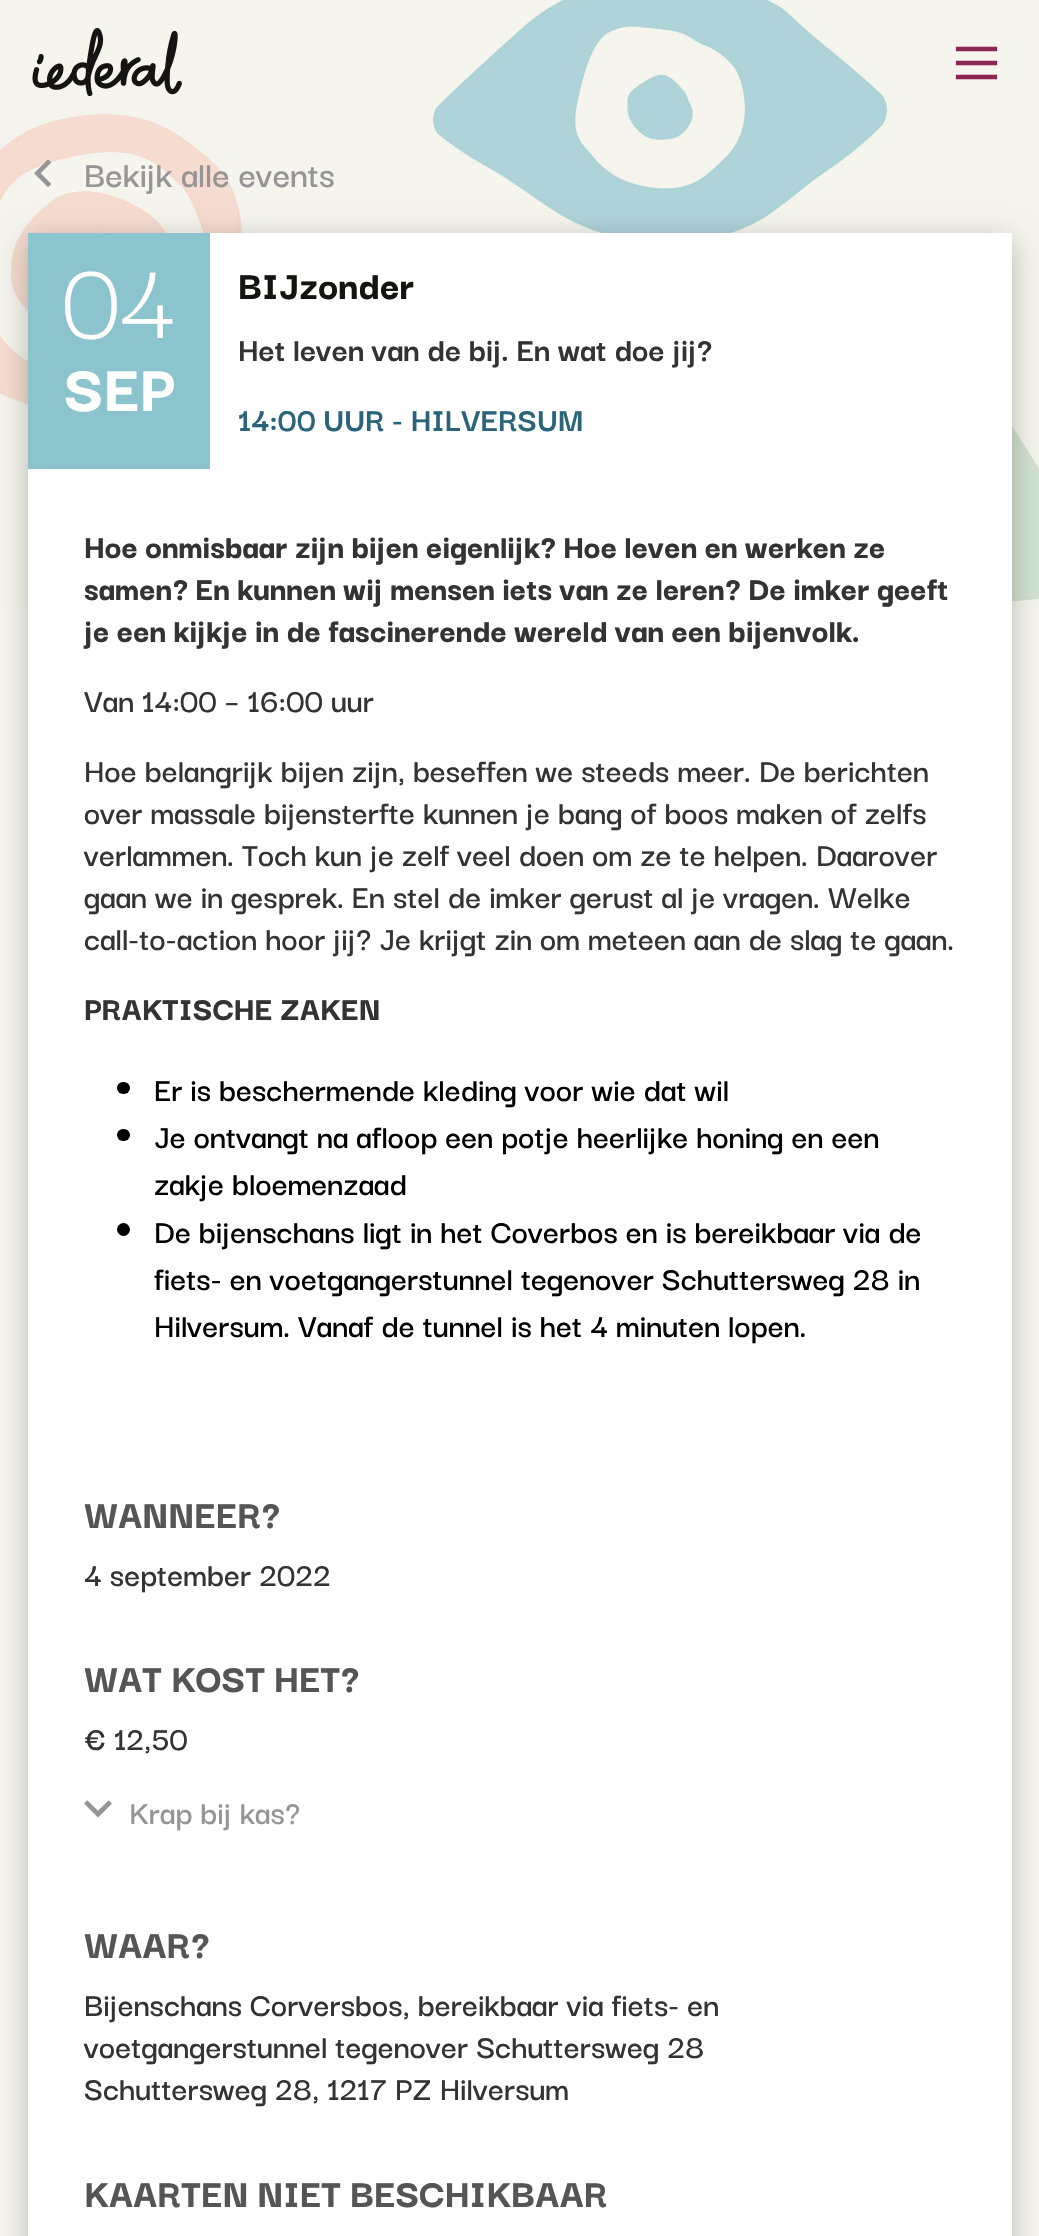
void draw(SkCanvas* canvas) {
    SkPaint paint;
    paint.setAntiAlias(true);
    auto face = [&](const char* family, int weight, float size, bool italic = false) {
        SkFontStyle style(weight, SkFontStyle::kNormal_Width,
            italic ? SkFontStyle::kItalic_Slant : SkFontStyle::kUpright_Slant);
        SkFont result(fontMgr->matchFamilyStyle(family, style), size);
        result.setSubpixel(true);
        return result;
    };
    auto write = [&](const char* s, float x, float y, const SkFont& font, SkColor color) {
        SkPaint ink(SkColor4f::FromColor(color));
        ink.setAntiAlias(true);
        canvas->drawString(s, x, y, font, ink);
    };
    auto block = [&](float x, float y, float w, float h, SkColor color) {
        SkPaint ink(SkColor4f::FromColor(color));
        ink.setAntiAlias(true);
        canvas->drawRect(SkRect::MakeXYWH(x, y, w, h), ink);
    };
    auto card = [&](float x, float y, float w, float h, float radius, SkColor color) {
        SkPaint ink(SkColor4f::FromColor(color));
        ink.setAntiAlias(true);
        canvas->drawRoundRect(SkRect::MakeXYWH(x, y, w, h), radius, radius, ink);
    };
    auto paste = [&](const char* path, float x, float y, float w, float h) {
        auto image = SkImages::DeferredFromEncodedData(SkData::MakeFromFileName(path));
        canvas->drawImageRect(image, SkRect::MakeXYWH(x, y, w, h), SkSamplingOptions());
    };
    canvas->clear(SkColorSetRGB(246, 245, 238));
    paste("pic1.png", 0, 0, 1039, 607);
    paste("pic2.png", 32, 28, 150, 68);
    paste("pic3.png", 955, 46, 43, 34);
    paste("pic4.png", 34, 159, 18, 28);
    auto kFont1 = face("Darker Grotesque", 600, 38.5f);
    write("Bekijk alle events", 84, 187, kFont1, SkColorSetRGB(149, 149, 149));
    paint.setColor(SkColorSetARGB(64, 0, 0, 0));
    paint.setMaskFilter(SkMaskFilter::MakeBlur(kNormal_SkBlurStyle, 14));
    canvas->drawRect(SkRect::MakeXYWH(28, 240, 984, 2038), paint);
    paint.setMaskFilter(nullptr);
    block(28, 233, 182, 236, SkColorSetRGB(140, 196, 205));
    auto kFont2 = face("Darker Grotesque", 400, 116);
    write("04", 62, 338, kFont2, SK_ColorWHITE);
    auto kFont3 = face("Darker Grotesque", 800, 70);
    write("SEP", 64, 411, kFont3, SK_ColorWHITE);
    block(210, 233, 802, 236, SK_ColorWHITE);
    auto kFont4 = face("Darker Grotesque", 800, 42);
    write("BIJzonder", 238, 299, kFont4, SkColorSetRGB(22, 20, 18));
    auto kFont5 = face("Darker Grotesque", 700, 35);
    write("Het leven van de bij. En wat doe jij?", 238, 361, kFont5, SkColorSetRGB(51, 51, 51));
    write("14:00 UUR - HILVERSUM", 238, 431, kFont5, SkColorSetRGB(42, 100, 123));
    block(28, 469, 984, 1767, SK_ColorWHITE);
    auto kFont6 = face("Darker Grotesque", 800, 35);
    write("Hoe onmisbaar zijn bijen eigenlijk? Hoe leven en werken ze", 84, 558, kFont6, SkColorSetRGB(51, 51, 51));
    write("samen? En kunnen wij mensen iets van ze leren? De imker geeft", 84, 600, kFont6, SkColorSetRGB(51, 51, 51));
    write("je een kijkje in de fascinerende wereld van een bijenvolk.", 84, 642, kFont6, SkColorSetRGB(51, 51, 51));
    auto kFont7 = face("Darker Grotesque", 600, 35);
    write("Van 14:00 – 16:00 uur", 84, 712, kFont7, SkColorSetRGB(51, 51, 51));
    write("Hoe belangrijk bijen zijn, beseffen we steeds meer. De berichten", 84, 782, kFont7, SkColorSetRGB(51, 51, 51));
    write("over massale bijensterfte kunnen je bang of boos maken of zelfs", 84, 824, kFont7, SkColorSetRGB(51, 51, 51));
    write("verlammen. Toch kun je zelf veel doen om ze te helpen. Daarover", 84, 866, kFont7, SkColorSetRGB(51, 51, 51));
    write("gaan we in gesprek. En stel de imker gerust al je vragen. Welke", 84, 908, kFont7, SkColorSetRGB(51, 51, 51));
    write("call-to-action hoor jij? Je krijgt zin om meteen aan de slag te gaan.", 84, 950, kFont7, SkColorSetRGB(51, 51, 51));
    write("PRAKTISCHE ZAKEN", 84, 1020, kFont6, SkColorSetRGB(51, 51, 51));
    card(117, 1082, 13, 12, 6, SK_ColorBLACK);
    write("Er is beschermende kleding voor wie dat wil", 154, 1101, kFont7, SK_ColorBLACK);
    card(117, 1129, 13, 12, 6, SK_ColorBLACK);
    write("Je ontvangt na afloop een potje heerlijke honing en een", 154, 1148, kFont7, SK_ColorBLACK);
    write("zakje bloemenzaad", 154, 1195, kFont7, SK_ColorBLACK);
    paint.setColor(SK_ColorBLACK);
    canvas->drawCircle(123.5f, 1229.5f, 6.5f, paint);
    write("De bijenschans ligt in het Coverbos en is bereikbaar via de", 154, 1243, kFont7, SK_ColorBLACK);
    write("fiets- en voetgangerstunnel tegenover Schuttersweg 28 in", 154, 1290, kFont7, SK_ColorBLACK);
    write("Hilversum. Vanaf de tunnel is het 4 minuten lopen.", 154, 1337, kFont7, SK_ColorBLACK);
    write("WANNEER?", 84, 1528, kFont4, SkColorSetRGB(85, 85, 85));
    write("4 september 2022", 84, 1586, kFont7, SkColorSetRGB(51, 51, 51));
    write("WAT KOST HET?", 84, 1692, kFont4, SkColorSetRGB(85, 85, 85));
    write("€ 12,50", 84, 1750, kFont7, SkColorSetRGB(51, 51, 51));
    paste("pic5.png", 84, 1800, 28, 18);
    write("Krap bij kas?", 129, 1824, kFont7, SkColorSetRGB(149, 149, 149));
    write("WAAR?", 84, 1958, kFont4, SkColorSetRGB(85, 85, 85));
    write("Bijenschans Corversbos, bereikbaar via fiets- en", 84, 2016, kFont7, SkColorSetRGB(51, 51, 51));
    write("voetgangerstunnel tegenover Schuttersweg 28", 84, 2058, kFont7, SkColorSetRGB(51, 51, 51));
    write("Schuttersweg 28, 1217 PZ Hilversum", 84, 2100, kFont7, SkColorSetRGB(51, 51, 51));
    write("KAARTEN NIET BESCHIKBAAR", 84, 2207, kFont4, SkColorSetRGB(85, 85, 85));
}
